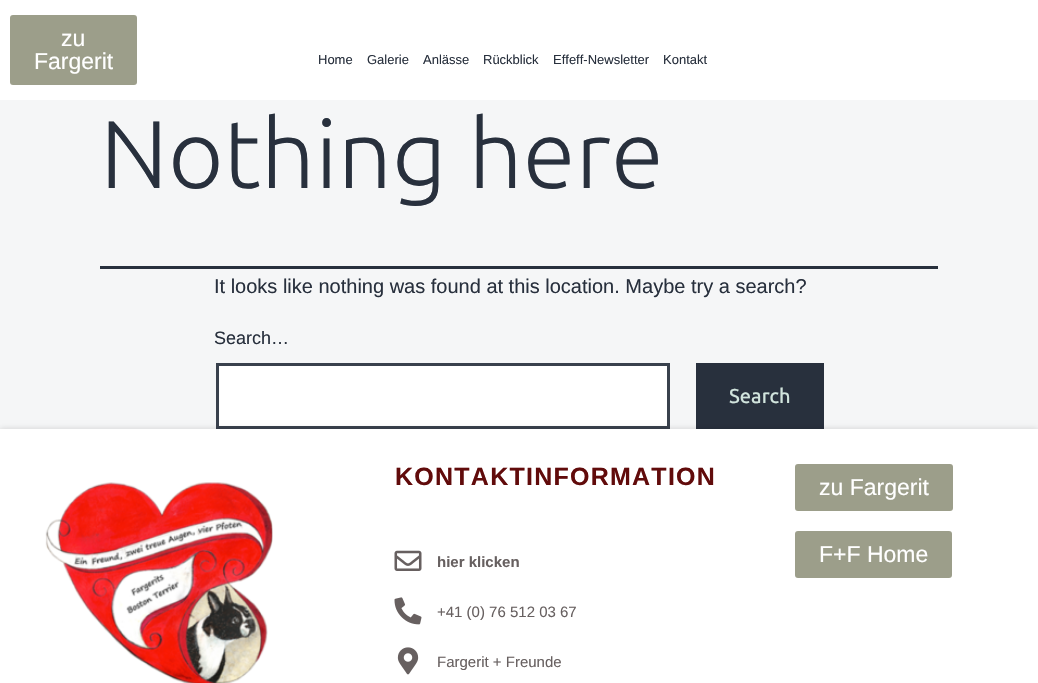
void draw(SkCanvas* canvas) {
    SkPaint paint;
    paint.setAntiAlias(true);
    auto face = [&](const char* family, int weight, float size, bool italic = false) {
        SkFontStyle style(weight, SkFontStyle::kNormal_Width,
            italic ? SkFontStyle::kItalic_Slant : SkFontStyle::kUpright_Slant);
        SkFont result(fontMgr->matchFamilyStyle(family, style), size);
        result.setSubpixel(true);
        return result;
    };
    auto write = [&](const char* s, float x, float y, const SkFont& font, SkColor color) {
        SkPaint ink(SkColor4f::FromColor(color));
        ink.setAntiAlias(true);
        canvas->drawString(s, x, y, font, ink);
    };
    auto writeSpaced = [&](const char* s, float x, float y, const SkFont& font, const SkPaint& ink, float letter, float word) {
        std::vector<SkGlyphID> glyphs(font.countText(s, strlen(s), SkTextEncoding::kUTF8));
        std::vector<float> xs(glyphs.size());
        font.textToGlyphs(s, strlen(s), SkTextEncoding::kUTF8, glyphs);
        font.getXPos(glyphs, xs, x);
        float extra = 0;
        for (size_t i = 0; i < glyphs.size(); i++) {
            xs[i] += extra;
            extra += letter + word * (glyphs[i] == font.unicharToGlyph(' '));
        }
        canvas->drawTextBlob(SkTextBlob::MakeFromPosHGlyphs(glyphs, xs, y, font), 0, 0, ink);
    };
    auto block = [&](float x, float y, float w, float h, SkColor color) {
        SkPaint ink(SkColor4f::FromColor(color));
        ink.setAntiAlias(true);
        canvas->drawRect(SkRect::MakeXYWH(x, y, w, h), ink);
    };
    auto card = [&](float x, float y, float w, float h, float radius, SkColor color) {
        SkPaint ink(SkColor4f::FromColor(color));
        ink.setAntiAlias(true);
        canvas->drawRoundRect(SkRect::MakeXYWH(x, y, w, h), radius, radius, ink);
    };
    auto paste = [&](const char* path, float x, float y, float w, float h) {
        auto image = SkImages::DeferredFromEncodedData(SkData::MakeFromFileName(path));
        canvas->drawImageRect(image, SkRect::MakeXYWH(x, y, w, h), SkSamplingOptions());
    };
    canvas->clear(SkColorSetRGB(245, 246, 247));
    block(0, 0, 1038, 100, SK_ColorWHITE);
    card(10, 15, 127, 70, 3, SkColorSetRGB(156, 158, 138));
    auto kFont1 = face("Liberation Sans", 400, 23);
    write("zu", 61, 46, kFont1, SK_ColorWHITE);
    write("Fargerit", 34, 69, kFont1, SK_ColorWHITE);
    auto kFont2 = face("Liberation Sans", 400, 13);
    write("Home", 318, 64, kFont2, SkColorSetRGB(40, 48, 61));
    write("Galerie", 367, 64, kFont2, SkColorSetRGB(40, 48, 61));
    write("Anlässe", 423, 64, kFont2, SkColorSetRGB(40, 48, 61));
    write("Rückblick", 483, 64, kFont2, SkColorSetRGB(40, 48, 61));
    write("Effeff-Newsletter", 553, 64, kFont2, SkColorSetRGB(40, 48, 61));
    write("Kontakt", 663, 64, kFont2, SkColorSetRGB(40, 48, 61));
    block(100, 266, 838, 3, SkColorSetRGB(40, 48, 61));
    auto kFont3 = face("Ubuntu", 300, 96);
    write("Nothing here", 100, 188, kFont3, SkColorSetRGB(40, 48, 61));
    auto kFont4 = face("Liberation Sans", 400, 20);
    write("It looks like nothing was found at this location. Maybe try a search?", 214, 293, kFont4, SkColorSetRGB(40, 48, 61));
    auto kFont5 = face("Liberation Sans", 400, 18);
    write("Search…", 214, 344, kFont5, SkColorSetRGB(40, 48, 61));
    paint.setColor(SK_ColorWHITE);
    canvas->drawRect(SkRect::MakeXYWH(217.5f, 364.5f, 451, 63), paint);
    paint.setStyle(SkPaint::kStroke_Style);
    paint.setStrokeWidth(3);
    paint.setColor(SkColorSetRGB(57, 65, 77));
    canvas->drawRect(SkRect::MakeXYWH(217.5f, 364.5f, 451, 63), paint);
    block(696, 363, 128, 66, SkColorSetRGB(40, 48, 61));
    auto kFont6 = face("Ubuntu", 500, 20);
    write("Search", 729, 403, kFont6, SkColorSetRGB(209, 228, 221));
    paint.setStyle(SkPaint::kFill_Style);
    paint.setColor(SkColorSetARGB(41, 0, 0, 0));
    paint.setMaskFilter(SkMaskFilter::MakeBlur(kNormal_SkBlurStyle, 3));
    canvas->drawRect(SkRect::MakeXYWH(0, 429, 1038, 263), paint);
    paint.setMaskFilter(nullptr);
    block(0, 429, 1038, 254, SK_ColorWHITE);
    paste("pic1.png", 45, 482, 228, 201);
    auto kFont7 = face("Liberation Sans", 700, 25);
    paint.setColor(SkColorSetRGB(97, 11, 11));
    writeSpaced("KONTAKTINFORMATION", 395, 485, kFont7, paint, 1.25f, 0);
    paste("pic2.png", 394, 550, 28, 21);
    auto kFont8 = face("Liberation Sans", 700, 15);
    write("hier klicken", 437, 567, kFont8, SkColorSetRGB(103, 96, 96));
    paste("pic3.png", 394, 597, 28, 28);
    auto kFont9 = face("Liberation Sans", 400, 15);
    write("+41 (0) 76 512 03 67", 437, 617, kFont9, SkColorSetRGB(103, 96, 96));
    paste("pic4.png", 397, 647, 22, 28);
    write("Fargerit + Freunde", 437, 667, kFont9, SkColorSetRGB(103, 96, 96));
    card(795, 464, 158, 47, 3, SkColorSetRGB(156, 158, 138));
    write("zu Fargerit", 819, 495, kFont1, SK_ColorWHITE);
    card(795, 531, 157, 47, 3, SkColorSetRGB(156, 158, 138));
    write("F+F Home", 819, 562, kFont1, SK_ColorWHITE);
}
